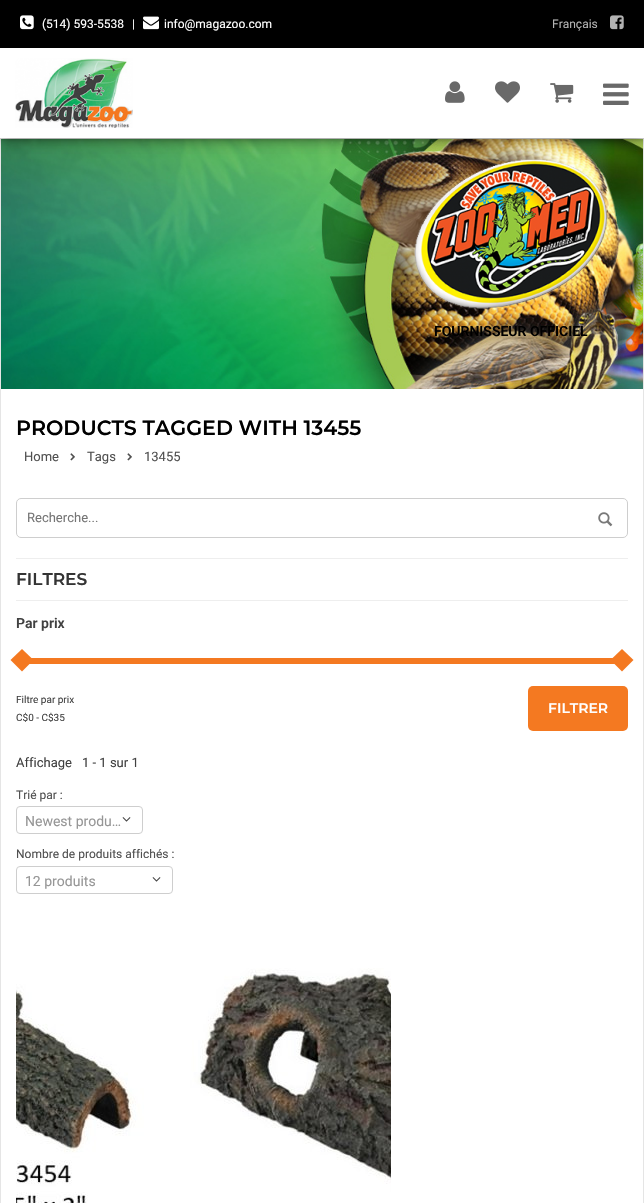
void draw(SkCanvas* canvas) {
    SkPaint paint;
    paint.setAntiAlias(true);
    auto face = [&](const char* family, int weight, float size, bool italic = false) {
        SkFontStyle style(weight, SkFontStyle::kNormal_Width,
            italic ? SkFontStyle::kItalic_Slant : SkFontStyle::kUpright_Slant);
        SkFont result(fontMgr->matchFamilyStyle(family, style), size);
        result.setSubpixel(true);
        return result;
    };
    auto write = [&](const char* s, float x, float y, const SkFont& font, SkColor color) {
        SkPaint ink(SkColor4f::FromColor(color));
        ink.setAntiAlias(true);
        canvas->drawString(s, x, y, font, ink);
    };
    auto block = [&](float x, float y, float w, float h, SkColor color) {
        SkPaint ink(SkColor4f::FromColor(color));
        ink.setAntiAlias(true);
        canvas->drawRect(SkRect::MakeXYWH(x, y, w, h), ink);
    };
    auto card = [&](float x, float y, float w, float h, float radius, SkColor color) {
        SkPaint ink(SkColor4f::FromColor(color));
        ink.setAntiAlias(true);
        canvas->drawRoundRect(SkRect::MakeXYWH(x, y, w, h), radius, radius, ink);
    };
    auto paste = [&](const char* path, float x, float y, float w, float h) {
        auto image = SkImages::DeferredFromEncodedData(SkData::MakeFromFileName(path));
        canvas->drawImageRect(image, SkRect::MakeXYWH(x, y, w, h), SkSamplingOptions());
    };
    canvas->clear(SK_ColorWHITE);
    paint.setStyle(SkPaint::kStroke_Style);
    paint.setStrokeWidth(1);
    paint.setColor(SkColorSetRGB(229, 229, 229));
    canvas->drawRect(SkRect::MakeXYWH(0.5f, 138.5f, 643, 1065), paint);
    paste("pic9.png", 1, 139, 642, 250);
    paint.setStyle(SkPaint::kFill_Style);
    paint.setColor(SkColorSetARGB(191, 0, 0, 0));
    paint.setMaskFilter(SkMaskFilter::MakeBlur(kNormal_SkBlurStyle, 6.5f));
    canvas->drawRect(SkRect::MakeXYWH(0, -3, 644, 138), paint);
    paint.setMaskFilter(nullptr);
    block(0, 48, 644, 90, SK_ColorWHITE);
    block(0, 0, 644, 48, SK_ColorBLACK);
    paste("pic1.png", 20, 15, 14, 15);
    auto kFont1 = face("Roboto", 400, 12);
    write("(514) 593-5538", 42, 28, kFont1, SK_ColorWHITE);
    write("|", 132, 28, kFont1, SK_ColorWHITE);
    paste("pic2.png", 143, 16, 16, 14);
    write("info@magazoo.com", 164, 28, kFont1, SK_ColorWHITE);
    write("Français", 552, 28, kFont1, SkColorSetRGB(179, 179, 179));
    paste("pic3.png", 610, 15, 14, 15);
    paste("pic4.png", 15, 58, 118, 70);
    paste("pic5.png", 445, 81, 20, 22);
    paste("pic6.png", 495, 81, 25, 22);
    paste("pic7.png", 550, 83, 24, 20);
    paste("pic8.png", 603, 83, 26, 22);
    paste("pic10.png", 414, 159, 194, 150);
    auto kFont2 = face("Roboto", 600, 14);
    write("FOURNISSEUR OFFICIEL", 434, 336, kFont2, SK_ColorBLACK);
    auto kFont3 = face("Montserrat", 600, 20.6f);
    write("PRODUCTS TAGGED WITH 13455", 16, 435, kFont3, SK_ColorBLACK);
    auto kFont4 = face("Roboto", 400, 13);
    write("Home", 24, 461, kFont4, SkColorSetRGB(80, 80, 80));
    paste("pic11.png", 70, 453, 5, 8);
    write("Tags", 87, 461, kFont4, SkColorSetRGB(80, 80, 80));
    paste("pic11.png", 127, 453, 5, 8);
    write("13455", 144, 461, kFont4, SkColorSetRGB(80, 80, 80));
    paint.setStyle(SkPaint::kStroke_Style);
    paint.setColor(SkColorSetRGB(206, 206, 206));
    canvas->drawRoundRect(SkRect::MakeXYWH(16.5f, 498.5f, 611, 39), 4.5f, 4.5f, paint);
    write("Recherche...", 27, 522, kFont4, SkColorSetRGB(117, 117, 117));
    paste("pic12.png", 598, 512, 15, 15);
    block(16, 558, 612, 1, SkColorSetRGB(238, 238, 238));
    block(16, 600, 612, 1, SkColorSetRGB(238, 238, 238));
    auto kFont5 = face("Montserrat", 600, 17);
    write("FILTRES", 16, 585, kFont5, SkColorSetRGB(52, 52, 52));
    write("Par prix", 16, 628, kFont2, SkColorSetRGB(65, 65, 65));
    block(23, 658, 600, 6, SkColorSetRGB(244, 121, 33));
    paint.setStyle(SkPaint::kFill_Style);
    paint.setColor(SkColorSetRGB(244, 121, 33));
    canvas->drawPath(SkPathBuilder().moveTo(22, 649).lineTo(33.5f, 660).lineTo(22, 671.5f).lineTo(10.5f, 660).close().detach(), paint);
    canvas->drawPath(SkPathBuilder().moveTo(622, 649).lineTo(633.5f, 660).lineTo(622, 671.5f).lineTo(610.5f, 660).close().detach(), paint);
    auto kFont6 = face("Roboto", 400, 10);
    write("Filtre par prix", 16, 703, kFont6, SkColorSetRGB(65, 65, 65));
    write("C$0 - C$35", 16, 721, kFont6, SkColorSetRGB(65, 65, 65));
    card(528, 686, 100, 45, 5, SkColorSetRGB(244, 121, 33));
    auto kFont7 = face("Montserrat", 600, 14);
    write("FILTRER", 548, 713, kFont7, SK_ColorWHITE);
    write("Affichage", 16, 767, kFont4, SkColorSetRGB(65, 65, 65));
    write("1 - 1 sur 1", 82, 767, kFont4, SkColorSetRGB(65, 65, 65));
    write("Trié par :", 16, 799, kFont1, SkColorSetRGB(80, 80, 80));
    paint.setStyle(SkPaint::kStroke_Style);
    paint.setColor(SkColorSetRGB(206, 206, 206));
    canvas->drawRoundRect(SkRect::MakeXYWH(16.5f, 806.5f, 126, 27), 3.5f, 3.5f, paint);
    auto kFont8 = face("Roboto", 400, 14);
    write("Newest produ…", 25, 826, kFont8, SkColorSetRGB(150, 150, 150));
    paste("pic13.png", 122, 817, 9, 5);
    write("Nombre de produits affichés :", 16, 858, kFont1, SkColorSetRGB(80, 80, 80));
    canvas->drawRoundRect(SkRect::MakeXYWH(16.5f, 866.5f, 156, 27), 3.5f, 3.5f, paint);
    write("12 produits", 25, 886, kFont8, SkColorSetRGB(150, 150, 150));
    paste("pic13.png", 152, 877, 9, 5);
    paste("pic14.png", 16, 968, 375, 235);
}
